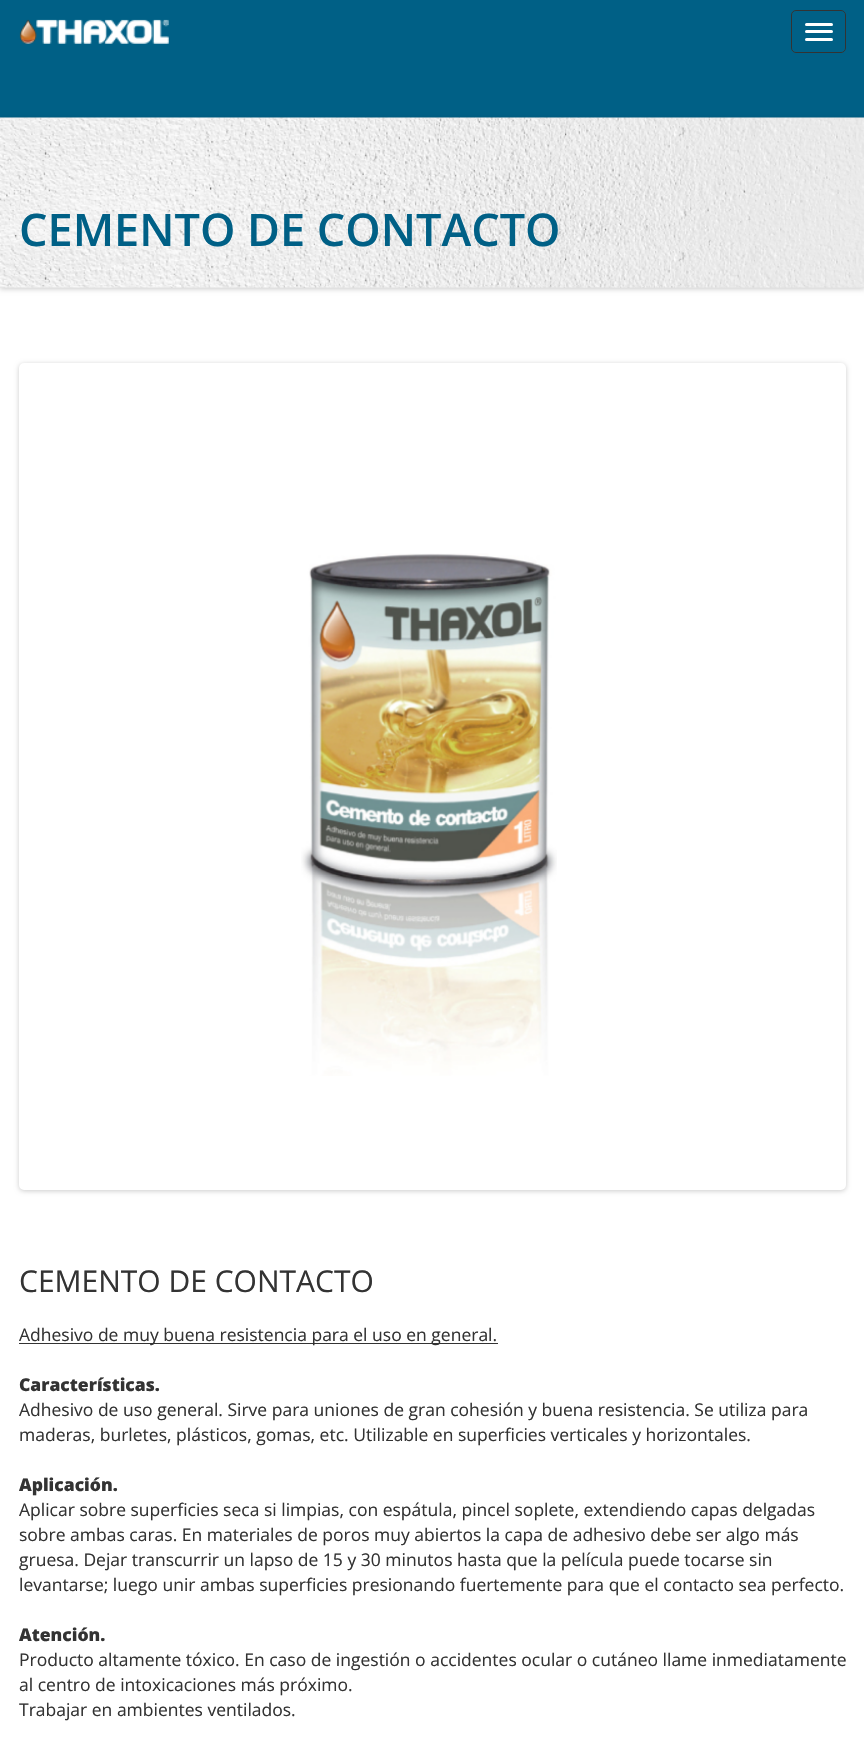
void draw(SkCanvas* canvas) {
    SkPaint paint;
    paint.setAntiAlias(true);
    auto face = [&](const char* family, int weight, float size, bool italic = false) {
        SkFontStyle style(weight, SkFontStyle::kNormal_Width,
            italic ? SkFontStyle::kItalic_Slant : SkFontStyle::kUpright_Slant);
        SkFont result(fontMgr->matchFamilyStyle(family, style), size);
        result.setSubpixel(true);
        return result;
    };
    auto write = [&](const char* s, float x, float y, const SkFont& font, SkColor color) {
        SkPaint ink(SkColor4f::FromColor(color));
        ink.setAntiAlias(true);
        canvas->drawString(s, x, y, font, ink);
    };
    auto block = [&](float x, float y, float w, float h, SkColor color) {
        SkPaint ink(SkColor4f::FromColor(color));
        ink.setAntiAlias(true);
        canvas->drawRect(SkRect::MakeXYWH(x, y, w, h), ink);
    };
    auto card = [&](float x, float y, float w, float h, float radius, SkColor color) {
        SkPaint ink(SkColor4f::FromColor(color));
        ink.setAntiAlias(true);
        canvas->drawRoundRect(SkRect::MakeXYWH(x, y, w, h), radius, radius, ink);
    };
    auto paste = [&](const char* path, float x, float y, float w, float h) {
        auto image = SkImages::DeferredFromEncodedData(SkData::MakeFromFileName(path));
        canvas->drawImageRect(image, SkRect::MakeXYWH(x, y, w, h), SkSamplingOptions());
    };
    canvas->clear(SK_ColorWHITE);
    block(0, 0, 864, 118, SkColorSetRGB(0, 96, 134));
    paste("pic1.png", 19, 19, 150, 25);
    paint.setStyle(SkPaint::kStroke_Style);
    paint.setStrokeWidth(1);
    paint.setColor(SkColorSetRGB(51, 51, 51));
    canvas->drawRoundRect(SkRect::MakeXYWH(791.5f, 10.5f, 54, 42), 4.5f, 4.5f, paint);
    card(805, 23, 28, 3, 1.5f, SK_ColorWHITE);
    card(805, 30, 28, 3, 1.5f, SK_ColorWHITE);
    card(805, 38, 28, 3, 1.5f, SK_ColorWHITE);
    paint.setStyle(SkPaint::kFill_Style);
    paint.setColor(SkColorSetARGB(51, 0, 0, 0));
    paint.setMaskFilter(SkMaskFilter::MakeBlur(kNormal_SkBlurStyle, 2.5f));
    canvas->drawRect(SkRect::MakeXYWH(0, 119, 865, 170), paint);
    paint.setMaskFilter(nullptr);
    block(0, 287, 864, 1, SkColorSetRGB(224, 224, 224));
    paste("pic2.png", 0, 117, 864, 171);
    auto kFont1 = face("Open Sans", 600, 45);
    write("CEMENTO DE CONTACTO", 19, 246, kFont1, SkColorSetRGB(0, 96, 134));
    paint.setMaskFilter(SkMaskFilter::MakeBlur(kNormal_SkBlurStyle, 2.5f));
    canvas->drawRoundRect(SkRect::MakeXYWH(19, 364, 827, 827), 5, 5, paint);
    paint.setMaskFilter(nullptr);
    paint.setColor(SK_ColorWHITE);
    canvas->drawRoundRect(SkRect::MakeXYWH(21.5f, 365.5f, 822, 822), 2.5f, 2.5f, paint);
    paint.setStyle(SkPaint::kStroke_Style);
    paint.setStrokeWidth(5);
    canvas->drawRoundRect(SkRect::MakeXYWH(21.5f, 365.5f, 822, 822), 2.5f, 2.5f, paint);
    paste("pic3.png", 301, 553, 256, 523);
    auto kFont2 = face("Open Sans", 400, 30);
    write("CEMENTO DE CONTACTO", 19, 1292, kFont2, SkColorSetRGB(51, 51, 51));
    block(19, 1343, 479, 1, SkColorSetRGB(51, 51, 51));
    auto kFont3 = face("Open Sans", 400, 17.5f);
    write("Adhesivo de muy buena resistencia para el uso en general.", 19, 1341, kFont3, SkColorSetRGB(51, 51, 51));
    auto kFont4 = face("Open Sans", 800, 17.5f);
    write("Características.", 19, 1391, kFont4, SkColorSetRGB(51, 51, 51));
    write("Adhesivo de uso general. Sirve para uniones de gran cohesión y buena resistencia. Se utiliza para", 19, 1416, kFont3, SkColorSetRGB(51, 51, 51));
    write("maderas, burletes, plásticos, gomas, etc. Utilizable en superficies verticales y horizontales.", 19, 1441, kFont3, SkColorSetRGB(51, 51, 51));
    write("Aplicación.", 19, 1491, kFont4, SkColorSetRGB(51, 51, 51));
    write("Aplicar sobre superficies seca si limpias, con espátula, pincel soplete, extendiendo capas delgadas", 19, 1516, kFont3, SkColorSetRGB(51, 51, 51));
    write("sobre ambas caras. En materiales de poros muy abiertos la capa de adhesivo debe ser algo más", 19, 1541, kFont3, SkColorSetRGB(51, 51, 51));
    write("gruesa. Dejar transcurrir un lapso de 15 y 30 minutos hasta que la película puede tocarse sin", 19, 1566, kFont3, SkColorSetRGB(51, 51, 51));
    write("levantarse; luego unir ambas superficies presionando fuertemente para que el contacto sea perfecto.", 19, 1591, kFont3, SkColorSetRGB(51, 51, 51));
    write("Atención.", 19, 1641, kFont4, SkColorSetRGB(51, 51, 51));
    write("Producto altamente tóxico. En caso de ingestión o accidentes ocular o cutáneo llame inmediatamente", 19, 1666, kFont3, SkColorSetRGB(51, 51, 51));
    write("al centro de intoxicaciones más próximo.", 19, 1691, kFont3, SkColorSetRGB(51, 51, 51));
    write("Trabajar en ambientes ventilados.", 19, 1716, kFont3, SkColorSetRGB(51, 51, 51));
}
